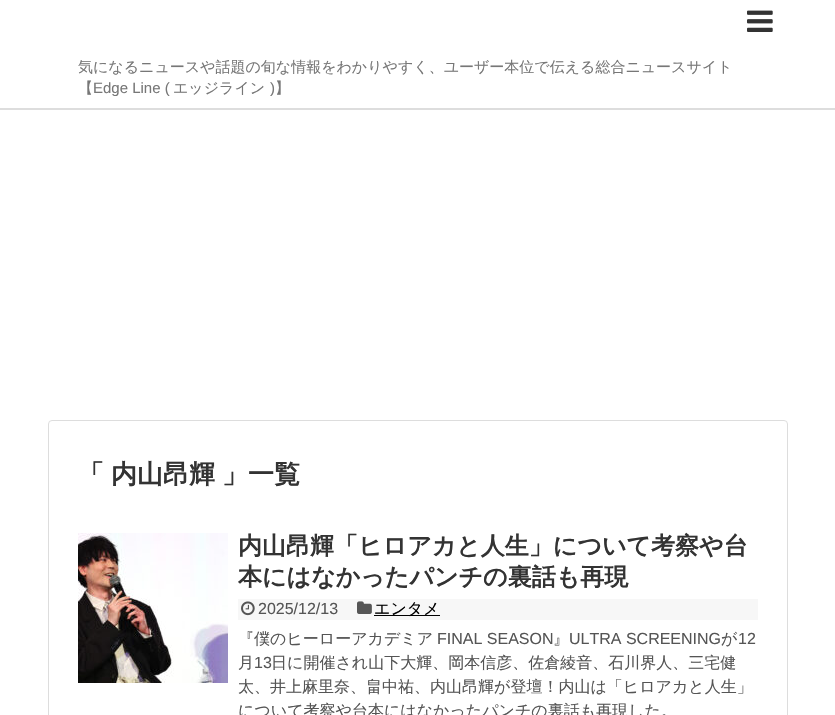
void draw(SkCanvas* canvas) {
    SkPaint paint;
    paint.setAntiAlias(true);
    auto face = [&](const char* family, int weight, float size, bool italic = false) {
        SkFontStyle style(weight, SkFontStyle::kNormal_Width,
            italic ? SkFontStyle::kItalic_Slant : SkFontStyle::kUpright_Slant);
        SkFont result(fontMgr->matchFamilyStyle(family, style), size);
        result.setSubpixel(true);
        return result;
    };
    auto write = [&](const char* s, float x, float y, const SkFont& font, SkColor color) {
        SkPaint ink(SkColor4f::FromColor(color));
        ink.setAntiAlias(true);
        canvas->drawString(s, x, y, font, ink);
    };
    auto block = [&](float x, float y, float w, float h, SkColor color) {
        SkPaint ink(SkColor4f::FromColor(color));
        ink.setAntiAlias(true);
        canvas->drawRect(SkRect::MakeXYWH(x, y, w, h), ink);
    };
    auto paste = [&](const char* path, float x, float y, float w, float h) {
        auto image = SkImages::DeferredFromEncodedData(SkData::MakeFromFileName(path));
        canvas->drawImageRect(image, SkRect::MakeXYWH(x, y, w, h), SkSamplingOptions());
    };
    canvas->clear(SK_ColorWHITE);
    paste("pic1.png", 747, 10, 26, 22);
    auto kFont1 = face("WenQuanYi Zen Hei", 500, 15);
    write("気になるニュースや話題の旬な情報をわかりやすく、ユーザー本位で伝える総合ニュースサイト", 78, 72, kFont1, SkColorSetRGB(119, 119, 119));
    write("【", 78, 93, kFont1, SkColorSetRGB(119, 119, 119));
    auto kFont2 = face("Liberation Sans", 400, 15);
    write("Edge Line (", 93, 93, kFont2, SkColorSetRGB(119, 119, 119));
    write("エッジライン", 173, 93, kFont1, SkColorSetRGB(119, 119, 119));
    write(")", 270, 93, kFont2, SkColorSetRGB(119, 119, 119));
    write("】", 275, 93, kFont1, SkColorSetRGB(119, 119, 119));
    block(0, 108, 835, 2, SkColorSetRGB(221, 221, 221));
    paint.setStyle(SkPaint::kStroke_Style);
    paint.setStrokeWidth(1);
    paint.setColor(SkColorSetRGB(221, 221, 221));
    canvas->drawRoundRect(SkRect::MakeXYWH(48.5f, 420.5f, 739, 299), 3.5f, 3.5f, paint);
    auto kFont3 = face("WenQuanYi Zen Hei", 700, 26);
    write("「", 78, 483, kFont3, SkColorSetRGB(51, 51, 51));
    write("内山昂輝", 111, 483, kFont3, SkColorSetRGB(51, 51, 51));
    write("」一覧", 222, 483, kFont3, SkColorSetRGB(51, 51, 51));
    paste("pic2.png", 78, 533, 150, 150);
    auto kFont4 = face("WenQuanYi Zen Hei", 700, 24);
    write("内山昂輝「ヒロアカと人生」について考察や台", 238, 554, kFont4, SkColorSetRGB(51, 51, 51));
    write("本にはなかったパンチの裏話も再現", 238, 585, kFont4, SkColorSetRGB(51, 51, 51));
    block(238, 599, 520, 21, SkColorSetRGB(247, 247, 247));
    paste("pic3.png", 241, 601, 14, 15);
    auto kFont5 = face("Liberation Sans", 400, 16);
    write("2025/12/13", 258, 614, kFont5, SkColorSetRGB(85, 85, 85));
    paste("pic4.png", 357, 601, 15, 13);
    block(374, 615, 66, 1, SK_ColorBLACK);
    auto kFont6 = face("WenQuanYi Zen Hei", 500, 16);
    write("エンタメ", 374, 614, kFont6, SK_ColorBLACK);
    write("『僕のヒーローアカデミア", 238, 644, kFont6, SkColorSetRGB(85, 85, 85));
    write("FINAL SEASON", 437, 644, kFont5, SkColorSetRGB(85, 85, 85));
    write("』", 553, 644, kFont6, SkColorSetRGB(85, 85, 85));
    write("ULTRA SCREENING", 569, 644, kFont5, SkColorSetRGB(85, 85, 85));
    write("が", 721, 644, kFont6, SkColorSetRGB(85, 85, 85));
    write("12", 738, 644, kFont5, SkColorSetRGB(85, 85, 85));
    write("月", 238, 668, kFont6, SkColorSetRGB(85, 85, 85));
    write("13", 254, 668, kFont5, SkColorSetRGB(85, 85, 85));
    write("日に開催され山下大輝、岡本信彦、佐倉綾音、石川界人、三宅健", 271, 668, kFont6, SkColorSetRGB(85, 85, 85));
    write("太、井上麻里奈、畠中祐、内山昂輝が登壇！内山は「ヒロアカと人生」", 238, 692, kFont6, SkColorSetRGB(85, 85, 85));
    write("について考察や台本にはなかったパンチの裏話も再現した。", 238, 716, kFont6, SkColorSetRGB(85, 85, 85));
}
